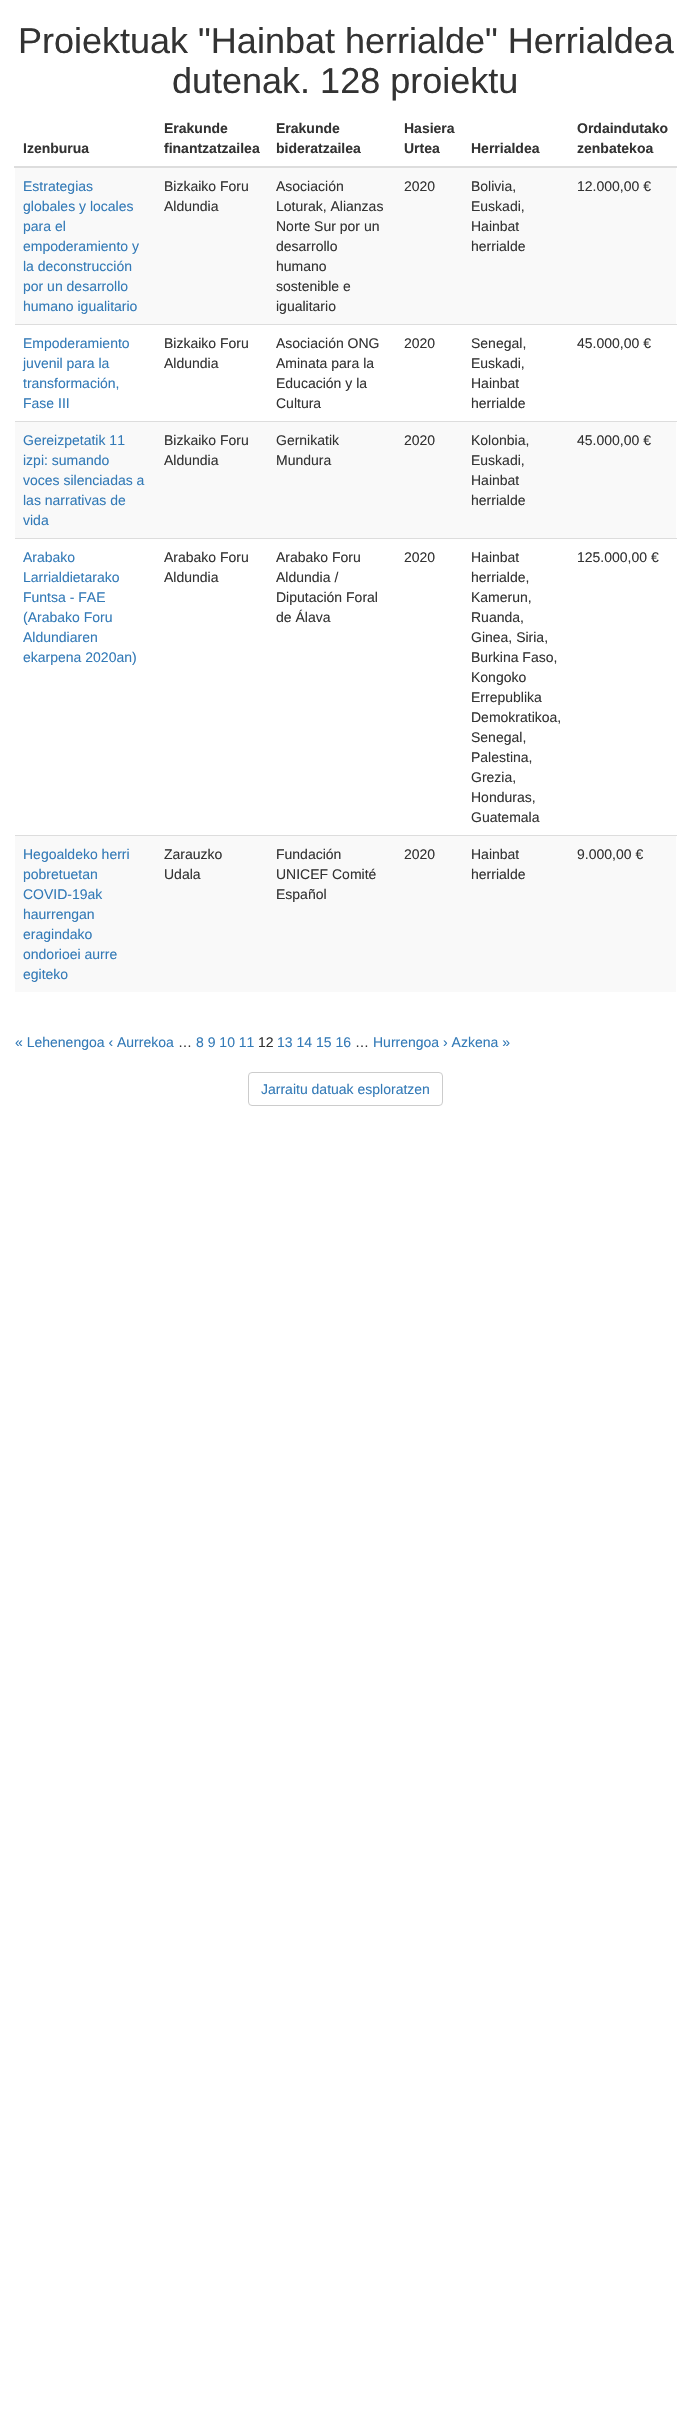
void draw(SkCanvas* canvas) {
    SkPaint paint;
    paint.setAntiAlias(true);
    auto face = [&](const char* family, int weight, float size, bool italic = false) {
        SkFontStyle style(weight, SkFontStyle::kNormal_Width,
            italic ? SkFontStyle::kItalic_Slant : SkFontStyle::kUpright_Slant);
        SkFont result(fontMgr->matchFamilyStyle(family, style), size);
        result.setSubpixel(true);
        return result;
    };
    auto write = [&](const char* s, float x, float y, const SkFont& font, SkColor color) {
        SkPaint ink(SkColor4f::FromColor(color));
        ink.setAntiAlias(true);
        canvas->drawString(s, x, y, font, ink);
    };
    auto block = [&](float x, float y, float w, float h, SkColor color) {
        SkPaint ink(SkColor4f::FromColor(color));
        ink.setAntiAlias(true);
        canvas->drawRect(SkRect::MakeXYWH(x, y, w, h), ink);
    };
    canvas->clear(SK_ColorWHITE);
    auto kFont1 = face("Liberation Sans", 400, 36);
    write("Proiektuak \"Hainbat herrialde\" Herrialdea", 18, 53, kFont1, SkColorSetRGB(51, 51, 51));
    write("dutenak. 128 proiektu", 172, 93, kFont1, SkColorSetRGB(51, 51, 51));
    auto kFont2 = face("Liberation Sans", 700, 14);
    write("Izenburua", 23, 153, kFont2, SkColorSetRGB(51, 51, 51));
    write("Erakunde", 164, 133, kFont2, SkColorSetRGB(51, 51, 51));
    write("finantzatzailea", 164, 153, kFont2, SkColorSetRGB(51, 51, 51));
    write("Erakunde", 276, 133, kFont2, SkColorSetRGB(51, 51, 51));
    write("bideratzailea", 276, 153, kFont2, SkColorSetRGB(51, 51, 51));
    write("Hasiera", 404, 133, kFont2, SkColorSetRGB(51, 51, 51));
    write("Urtea", 404, 153, kFont2, SkColorSetRGB(51, 51, 51));
    write("Herrialdea", 471, 153, kFont2, SkColorSetRGB(51, 51, 51));
    block(14, 166, 663, 2, SkColorSetRGB(221, 221, 221));
    write("Ordaindutako", 577, 133, kFont2, SkColorSetRGB(51, 51, 51));
    write("zenbatekoa", 577, 153, kFont2, SkColorSetRGB(51, 51, 51));
    block(15, 168, 661, 156, SkColorSetRGB(249, 249, 249));
    auto kFont3 = face("Liberation Sans", 400, 14);
    write("Estrategias", 23, 191, kFont3, SkColorSetRGB(51, 122, 183));
    write("globales y locales", 23, 211, kFont3, SkColorSetRGB(51, 122, 183));
    write("para el", 23, 231, kFont3, SkColorSetRGB(51, 122, 183));
    write("empoderamiento y", 23, 251, kFont3, SkColorSetRGB(51, 122, 183));
    write("la deconstrucción", 23, 271, kFont3, SkColorSetRGB(51, 122, 183));
    write("por un desarrollo", 23, 291, kFont3, SkColorSetRGB(51, 122, 183));
    write("humano igualitario", 23, 311, kFont3, SkColorSetRGB(51, 122, 183));
    write("Bizkaiko Foru", 164, 191, kFont3, SkColorSetRGB(51, 51, 51));
    write("Aldundia", 164, 211, kFont3, SkColorSetRGB(51, 51, 51));
    write("Asociación", 276, 191, kFont3, SkColorSetRGB(51, 51, 51));
    write("Loturak, Alianzas", 276, 211, kFont3, SkColorSetRGB(51, 51, 51));
    write("Norte Sur por un", 276, 231, kFont3, SkColorSetRGB(51, 51, 51));
    write("desarrollo", 276, 251, kFont3, SkColorSetRGB(51, 51, 51));
    write("humano", 276, 271, kFont3, SkColorSetRGB(51, 51, 51));
    write("sostenible e", 276, 291, kFont3, SkColorSetRGB(51, 51, 51));
    write("igualitario", 276, 311, kFont3, SkColorSetRGB(51, 51, 51));
    write("2020", 404, 191, kFont3, SkColorSetRGB(51, 51, 51));
    write("Bolivia,", 471, 191, kFont3, SkColorSetRGB(51, 51, 51));
    write("Euskadi,", 471, 211, kFont3, SkColorSetRGB(51, 51, 51));
    write("Hainbat", 471, 231, kFont3, SkColorSetRGB(51, 51, 51));
    write("herrialde", 471, 251, kFont3, SkColorSetRGB(51, 51, 51));
    write("12.000,00 €", 577, 191, kFont3, SkColorSetRGB(51, 51, 51));
    write("Empoderamiento", 23, 348, kFont3, SkColorSetRGB(51, 122, 183));
    write("juvenil para la", 23, 368, kFont3, SkColorSetRGB(51, 122, 183));
    write("transformación,", 23, 388, kFont3, SkColorSetRGB(51, 122, 183));
    write("Fase III", 23, 408, kFont3, SkColorSetRGB(51, 122, 183));
    write("Bizkaiko Foru", 164, 348, kFont3, SkColorSetRGB(51, 51, 51));
    write("Aldundia", 164, 368, kFont3, SkColorSetRGB(51, 51, 51));
    write("Asociación ONG", 276, 348, kFont3, SkColorSetRGB(51, 51, 51));
    write("Aminata para la", 276, 368, kFont3, SkColorSetRGB(51, 51, 51));
    write("Educación y la", 276, 388, kFont3, SkColorSetRGB(51, 51, 51));
    write("Cultura", 276, 408, kFont3, SkColorSetRGB(51, 51, 51));
    write("2020", 404, 348, kFont3, SkColorSetRGB(51, 51, 51));
    write("Senegal,", 471, 348, kFont3, SkColorSetRGB(51, 51, 51));
    write("Euskadi,", 471, 368, kFont3, SkColorSetRGB(51, 51, 51));
    write("Hainbat", 471, 388, kFont3, SkColorSetRGB(51, 51, 51));
    write("herrialde", 471, 408, kFont3, SkColorSetRGB(51, 51, 51));
    block(15, 324, 662, 1, SkColorSetRGB(221, 221, 221));
    write("45.000,00 €", 577, 348, kFont3, SkColorSetRGB(51, 51, 51));
    block(15, 422, 661, 116, SkColorSetRGB(249, 249, 249));
    write("Gereizpetatik 11", 23, 445, kFont3, SkColorSetRGB(51, 122, 183));
    write("izpi: sumando", 23, 465, kFont3, SkColorSetRGB(51, 122, 183));
    write("voces silenciadas a", 23, 485, kFont3, SkColorSetRGB(51, 122, 183));
    write("las narrativas de", 23, 505, kFont3, SkColorSetRGB(51, 122, 183));
    write("vida", 23, 525, kFont3, SkColorSetRGB(51, 122, 183));
    write("Bizkaiko Foru", 164, 445, kFont3, SkColorSetRGB(51, 51, 51));
    write("Aldundia", 164, 465, kFont3, SkColorSetRGB(51, 51, 51));
    write("Gernikatik", 276, 445, kFont3, SkColorSetRGB(51, 51, 51));
    write("Mundura", 276, 465, kFont3, SkColorSetRGB(51, 51, 51));
    write("2020", 404, 445, kFont3, SkColorSetRGB(51, 51, 51));
    write("Kolonbia,", 471, 445, kFont3, SkColorSetRGB(51, 51, 51));
    write("Euskadi,", 471, 465, kFont3, SkColorSetRGB(51, 51, 51));
    write("Hainbat", 471, 485, kFont3, SkColorSetRGB(51, 51, 51));
    write("herrialde", 471, 505, kFont3, SkColorSetRGB(51, 51, 51));
    block(15, 421, 662, 1, SkColorSetRGB(221, 221, 221));
    write("45.000,00 €", 577, 445, kFont3, SkColorSetRGB(51, 51, 51));
    write("Arabako", 23, 562, kFont3, SkColorSetRGB(51, 122, 183));
    write("Larrialdietarako", 23, 582, kFont3, SkColorSetRGB(51, 122, 183));
    write("Funtsa - FAE", 23, 602, kFont3, SkColorSetRGB(51, 122, 183));
    write("(Arabako Foru", 23, 622, kFont3, SkColorSetRGB(51, 122, 183));
    write("Aldundiaren", 23, 642, kFont3, SkColorSetRGB(51, 122, 183));
    write("ekarpena 2020an)", 23, 662, kFont3, SkColorSetRGB(51, 122, 183));
    write("Arabako Foru", 164, 562, kFont3, SkColorSetRGB(51, 51, 51));
    write("Aldundia", 164, 582, kFont3, SkColorSetRGB(51, 51, 51));
    write("Arabako Foru", 276, 562, kFont3, SkColorSetRGB(51, 51, 51));
    write("Aldundia /", 276, 582, kFont3, SkColorSetRGB(51, 51, 51));
    write("Diputación Foral", 276, 602, kFont3, SkColorSetRGB(51, 51, 51));
    write("de Álava", 276, 622, kFont3, SkColorSetRGB(51, 51, 51));
    write("2020", 404, 562, kFont3, SkColorSetRGB(51, 51, 51));
    write("Hainbat", 471, 562, kFont3, SkColorSetRGB(51, 51, 51));
    write("herrialde,", 471, 582, kFont3, SkColorSetRGB(51, 51, 51));
    write("Kamerun,", 471, 602, kFont3, SkColorSetRGB(51, 51, 51));
    write("Ruanda,", 471, 622, kFont3, SkColorSetRGB(51, 51, 51));
    write("Ginea, Siria,", 471, 642, kFont3, SkColorSetRGB(51, 51, 51));
    write("Burkina Faso,", 471, 662, kFont3, SkColorSetRGB(51, 51, 51));
    write("Kongoko", 471, 682, kFont3, SkColorSetRGB(51, 51, 51));
    write("Errepublika", 471, 702, kFont3, SkColorSetRGB(51, 51, 51));
    write("Demokratikoa,", 471, 722, kFont3, SkColorSetRGB(51, 51, 51));
    write("Senegal,", 471, 742, kFont3, SkColorSetRGB(51, 51, 51));
    write("Palestina,", 471, 762, kFont3, SkColorSetRGB(51, 51, 51));
    write("Grezia,", 471, 782, kFont3, SkColorSetRGB(51, 51, 51));
    write("Honduras,", 471, 802, kFont3, SkColorSetRGB(51, 51, 51));
    write("Guatemala", 471, 822, kFont3, SkColorSetRGB(51, 51, 51));
    block(15, 538, 662, 1, SkColorSetRGB(221, 221, 221));
    write("125.000,00 €", 577, 562, kFont3, SkColorSetRGB(51, 51, 51));
    block(15, 836, 661, 156, SkColorSetRGB(249, 249, 249));
    write("Hegoaldeko herri", 23, 859, kFont3, SkColorSetRGB(51, 122, 183));
    write("pobretuetan", 23, 879, kFont3, SkColorSetRGB(51, 122, 183));
    write("COVID-19ak", 23, 899, kFont3, SkColorSetRGB(51, 122, 183));
    write("haurrengan", 23, 919, kFont3, SkColorSetRGB(51, 122, 183));
    write("eragindako", 23, 939, kFont3, SkColorSetRGB(51, 122, 183));
    write("ondorioei aurre", 23, 959, kFont3, SkColorSetRGB(51, 122, 183));
    write("egiteko", 23, 979, kFont3, SkColorSetRGB(51, 122, 183));
    write("Zarauzko", 164, 859, kFont3, SkColorSetRGB(51, 51, 51));
    write("Udala", 164, 879, kFont3, SkColorSetRGB(51, 51, 51));
    write("Fundación", 276, 859, kFont3, SkColorSetRGB(51, 51, 51));
    write("UNICEF Comité", 276, 879, kFont3, SkColorSetRGB(51, 51, 51));
    write("Español", 276, 899, kFont3, SkColorSetRGB(51, 51, 51));
    write("2020", 404, 859, kFont3, SkColorSetRGB(51, 51, 51));
    write("Hainbat", 471, 859, kFont3, SkColorSetRGB(51, 51, 51));
    write("herrialde", 471, 879, kFont3, SkColorSetRGB(51, 51, 51));
    block(15, 835, 662, 1, SkColorSetRGB(221, 221, 221));
    write("9.000,00 €", 577, 859, kFont3, SkColorSetRGB(51, 51, 51));
    write("« Lehenengoa ‹ Aurrekoa", 15, 1047, kFont3, SkColorSetRGB(51, 122, 183));
    write("…", 178, 1047, kFont3, SkColorSetRGB(51, 51, 51));
    write("8 9 10 11", 196, 1047, kFont3, SkColorSetRGB(51, 122, 183));
    write("12", 258, 1047, kFont3, SkColorSetRGB(51, 51, 51));
    write("13 14 15 16", 277, 1047, kFont3, SkColorSetRGB(51, 122, 183));
    write("…", 355, 1047, kFont3, SkColorSetRGB(51, 51, 51));
    write("Hurrengoa › Azkena »", 373, 1047, kFont3, SkColorSetRGB(51, 122, 183));
    paint.setStyle(SkPaint::kStroke_Style);
    paint.setStrokeWidth(1);
    paint.setColor(SkColorSetRGB(204, 204, 204));
    canvas->drawRoundRect(SkRect::MakeXYWH(248.5f, 1072.5f, 194, 33), 3.5f, 3.5f, paint);
    write("Jarraitu datuak esploratzen", 261, 1094, kFont3, SkColorSetRGB(51, 122, 183));
}
